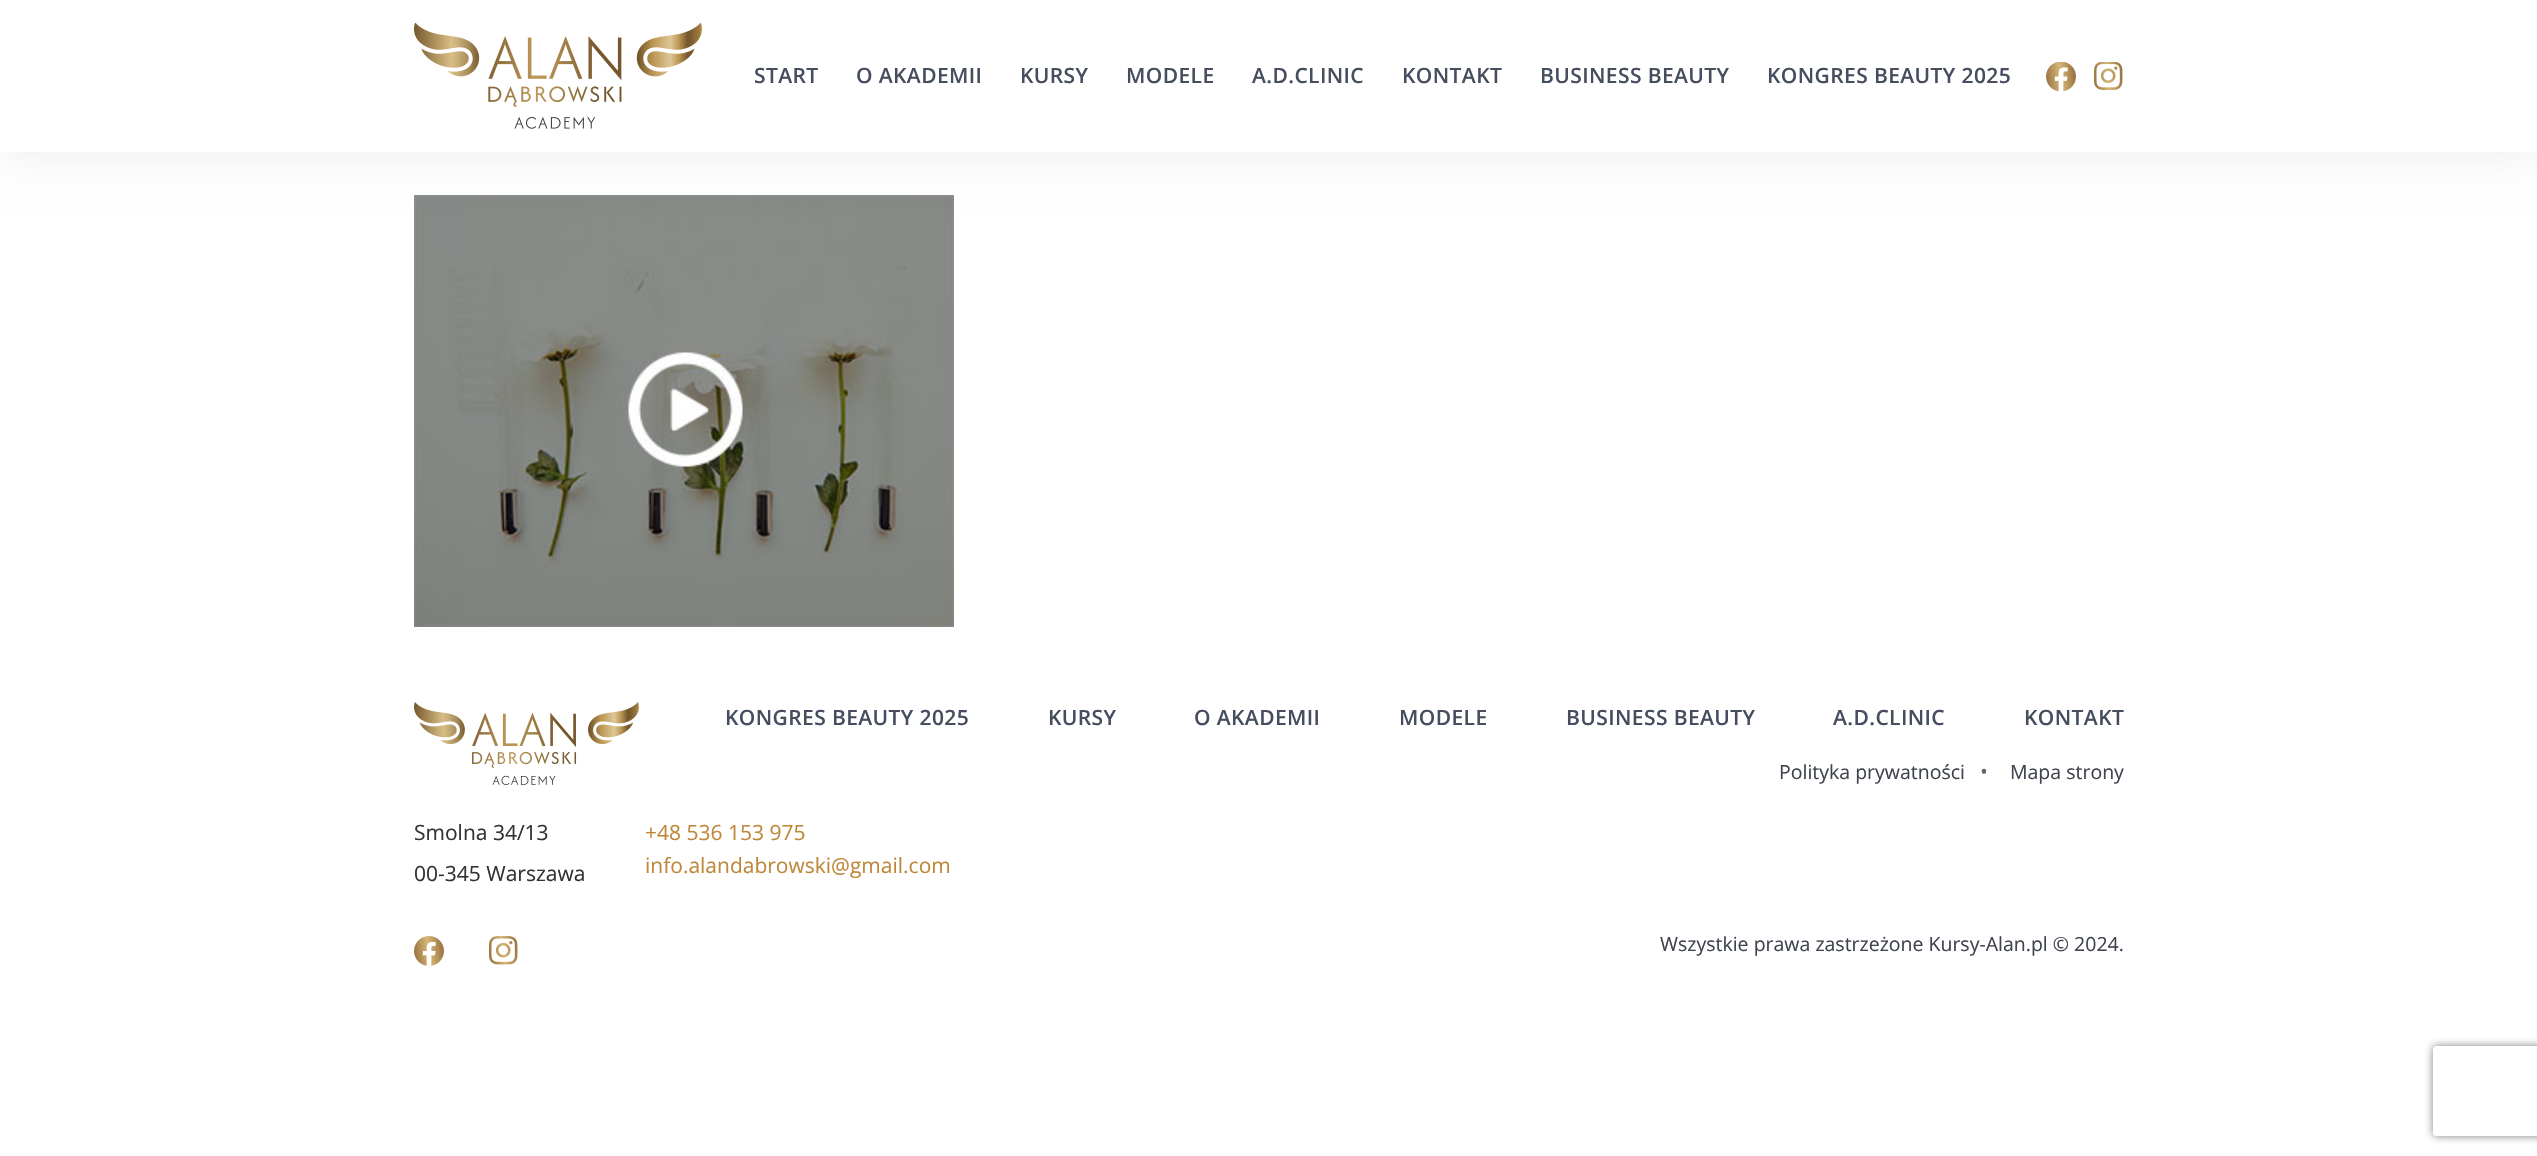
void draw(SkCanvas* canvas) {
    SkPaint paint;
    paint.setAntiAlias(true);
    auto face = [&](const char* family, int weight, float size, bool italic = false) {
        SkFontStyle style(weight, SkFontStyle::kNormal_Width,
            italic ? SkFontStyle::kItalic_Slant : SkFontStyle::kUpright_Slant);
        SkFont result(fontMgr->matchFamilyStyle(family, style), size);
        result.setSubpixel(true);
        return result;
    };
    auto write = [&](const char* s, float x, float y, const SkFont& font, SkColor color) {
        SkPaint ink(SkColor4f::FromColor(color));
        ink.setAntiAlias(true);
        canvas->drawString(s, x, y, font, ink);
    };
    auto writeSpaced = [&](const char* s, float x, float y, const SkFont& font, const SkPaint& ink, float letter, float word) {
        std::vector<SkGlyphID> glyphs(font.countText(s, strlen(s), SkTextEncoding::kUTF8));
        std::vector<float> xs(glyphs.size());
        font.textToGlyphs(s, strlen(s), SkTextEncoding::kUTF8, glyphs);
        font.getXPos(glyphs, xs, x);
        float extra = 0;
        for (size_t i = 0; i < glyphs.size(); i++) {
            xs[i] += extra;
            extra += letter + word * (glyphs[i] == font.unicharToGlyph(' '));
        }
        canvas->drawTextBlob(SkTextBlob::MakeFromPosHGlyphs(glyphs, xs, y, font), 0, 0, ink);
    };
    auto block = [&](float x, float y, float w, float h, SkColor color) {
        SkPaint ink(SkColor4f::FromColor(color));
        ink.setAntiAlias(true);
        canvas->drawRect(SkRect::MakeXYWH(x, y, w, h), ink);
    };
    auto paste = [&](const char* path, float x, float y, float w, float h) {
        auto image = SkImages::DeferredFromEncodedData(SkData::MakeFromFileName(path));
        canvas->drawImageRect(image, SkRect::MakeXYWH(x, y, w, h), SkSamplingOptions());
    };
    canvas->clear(SK_ColorWHITE);
    paste("pic4.png", 414, 195, 540, 432);
    paint.setColor(SkColorSetARGB(15, 0, 0, 0));
    paint.setMaskFilter(SkMaskFilter::MakeBlur(kNormal_SkBlurStyle, 18));
    canvas->drawRect(SkRect::MakeXYWH(0, 6, 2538, 152), paint);
    paint.setMaskFilter(nullptr);
    block(0, 0, 2537, 152, SK_ColorWHITE);
    paste("pic1.png", 414, 23, 288, 106);
    auto kFont1 = face("Open Sans", 600, 21);
    paint.setColor(SkColorSetRGB(69, 77, 95));
    writeSpaced("START", 754, 83, kFont1, paint, 0.4f, 0);
    writeSpaced("O AKADEMII", 856, 83, kFont1, paint, 0.4f, 0);
    writeSpaced("KURSY", 1020, 83, kFont1, paint, 0.4f, 0);
    writeSpaced("MODELE", 1126, 83, kFont1, paint, 0.4f, 0);
    writeSpaced("A.D.CLINIC", 1252, 83, kFont1, paint, 0.4f, 0);
    writeSpaced("KONTAKT", 1402, 83, kFont1, paint, 0.4f, 0);
    writeSpaced("BUSINESS BEAUTY", 1540, 83, kFont1, paint, 0.4f, 0);
    writeSpaced("KONGRES BEAUTY 2025", 1767, 83, kFont1, paint, 0.4f, 0);
    paste("pic2.png", 2046, 62, 30, 30);
    paste("pic3.png", 2094, 62, 29, 28);
    paste("pic5.png", 414, 702, 225, 83);
    writeSpaced("KONGRES BEAUTY 2025", 725, 725, kFont1, paint, 0.4f, 0);
    writeSpaced("KURSY", 1048, 725, kFont1, paint, 0.4f, 0);
    writeSpaced("O AKADEMII", 1194, 725, kFont1, paint, 0.4f, 0);
    writeSpaced("MODELE", 1399, 725, kFont1, paint, 0.4f, 0);
    writeSpaced("BUSINESS BEAUTY", 1566, 725, kFont1, paint, 0.4f, 0);
    writeSpaced("A.D.CLINIC", 1833, 725, kFont1, paint, 0.4f, 0);
    writeSpaced("KONTAKT", 2024, 725, kFont1, paint, 0.4f, 0);
    auto kFont2 = face("Open Sans", 400, 19.5f);
    write("Polityka prywatności", 1779, 779, kFont2, SkColorSetRGB(63, 67, 78));
    auto kFont3 = face("Open Sans", 400, 21);
    write("•", 1980, 779, kFont3, SkColorSetRGB(102, 102, 102));
    write("Mapa strony", 2010, 779, kFont2, SkColorSetRGB(63, 67, 78));
    write("Smolna 34/13", 414, 840, kFont3, SkColorSetRGB(51, 51, 51));
    write("00-345 Warszawa", 414, 881, kFont3, SkColorSetRGB(51, 51, 51));
    write("+48 536 153 975", 645, 840, kFont3, SkColorSetRGB(190, 136, 58));
    write("info.alandabrowski@gmail.com", 645, 873, kFont3, SkColorSetRGB(190, 136, 58));
    paste("pic6.png", 414, 936, 30, 30);
    paste("pic7.png", 489, 936, 29, 29);
    write("Wszystkie prawa zastrzeżone Kursy-Alan.pl © 2024.", 1660, 951, kFont2, SkColorSetRGB(63, 67, 78));
    canvas->save();
    canvas->clipPath(SkPathBuilder(SkPathFillType::kEvenOdd).moveTo(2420, 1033).lineTo(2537, 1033).lineTo(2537, 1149).lineTo(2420, 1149).close().moveTo(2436, 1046).lineTo(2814, 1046).cubicTo(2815.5f, 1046, 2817, 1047.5f, 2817, 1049).lineTo(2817, 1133).cubicTo(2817, 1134.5f, 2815.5f, 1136, 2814, 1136).lineTo(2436, 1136).cubicTo(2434.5f, 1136, 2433, 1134.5f, 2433, 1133).lineTo(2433, 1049).cubicTo(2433, 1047.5f, 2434.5f, 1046, 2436, 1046).close().detach(), true);
    paint.setColor(SkColorSetRGB(128, 128, 128));
    paint.setMaskFilter(SkMaskFilter::MakeBlur(kNormal_SkBlurStyle, 4));
    canvas->drawRoundRect(SkRect::MakeXYWH(2433, 1046, 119, 90), 3, 3, paint);
    paint.setMaskFilter(nullptr);
    canvas->restore();
}
